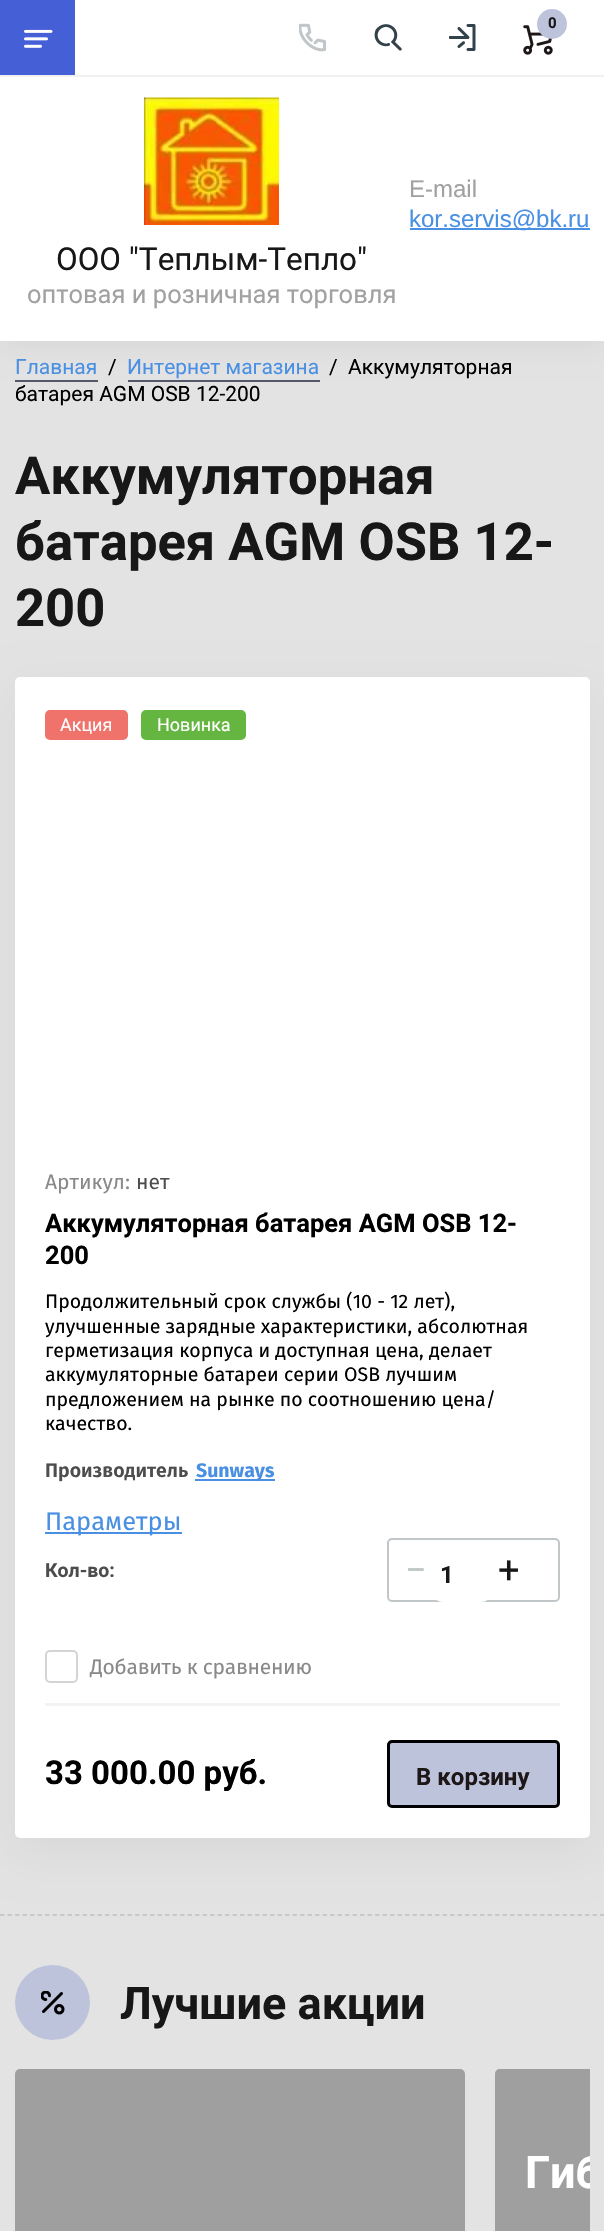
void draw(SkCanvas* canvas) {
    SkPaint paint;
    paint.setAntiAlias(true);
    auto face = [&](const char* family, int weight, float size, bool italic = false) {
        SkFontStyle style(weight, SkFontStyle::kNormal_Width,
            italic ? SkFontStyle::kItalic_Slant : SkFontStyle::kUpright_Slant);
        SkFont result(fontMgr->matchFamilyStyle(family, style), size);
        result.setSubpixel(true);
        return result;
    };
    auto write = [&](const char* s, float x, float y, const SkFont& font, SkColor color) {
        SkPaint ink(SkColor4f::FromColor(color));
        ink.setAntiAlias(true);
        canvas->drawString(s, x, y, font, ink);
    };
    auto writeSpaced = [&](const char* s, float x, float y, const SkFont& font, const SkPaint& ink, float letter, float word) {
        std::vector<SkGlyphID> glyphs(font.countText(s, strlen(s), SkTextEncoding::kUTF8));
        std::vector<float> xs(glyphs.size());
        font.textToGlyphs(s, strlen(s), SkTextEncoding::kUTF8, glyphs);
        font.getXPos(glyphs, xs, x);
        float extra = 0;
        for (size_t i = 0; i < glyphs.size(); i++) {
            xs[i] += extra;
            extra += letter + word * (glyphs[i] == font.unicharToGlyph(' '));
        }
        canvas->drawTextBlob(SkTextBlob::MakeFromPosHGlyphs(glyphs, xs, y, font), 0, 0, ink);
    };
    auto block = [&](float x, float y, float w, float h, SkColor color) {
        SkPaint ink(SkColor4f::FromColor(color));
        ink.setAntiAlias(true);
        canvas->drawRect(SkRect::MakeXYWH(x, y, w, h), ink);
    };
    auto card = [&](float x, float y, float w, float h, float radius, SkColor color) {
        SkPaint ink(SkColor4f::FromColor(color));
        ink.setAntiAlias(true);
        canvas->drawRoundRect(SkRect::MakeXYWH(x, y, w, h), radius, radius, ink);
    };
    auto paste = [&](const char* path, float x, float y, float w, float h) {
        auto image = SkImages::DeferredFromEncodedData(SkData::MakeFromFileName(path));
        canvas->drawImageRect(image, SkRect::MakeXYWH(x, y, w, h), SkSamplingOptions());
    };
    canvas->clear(SkColorSetRGB(227, 227, 227));
    block(15, 380, 83, 2, SkColorSetRGB(84, 88, 106));
    block(128, 380, 192, 2, SkColorSetRGB(84, 88, 106));
    paint.setColor(SkColorSetARGB(13, 0, 0, 0));
    paint.setMaskFilter(SkMaskFilter::MakeBlur(kNormal_SkBlurStyle, 11));
    canvas->drawRect(SkRect::MakeXYWH(0, 8, 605, 340), paint);
    paint.setMaskFilter(nullptr);
    block(0, 0, 604, 341, SK_ColorWHITE);
    block(0, 0, 75, 75, SkColorSetRGB(69, 96, 215));
    paste("pic1.png", 24, 29, 29, 19);
    paste("pic2.png", 299, 23, 28, 29);
    paste("pic3.png", 374, 24, 28, 27);
    paste("pic4.png", 449, 24, 27, 27);
    paste("pic5.png", 523, 25, 30, 30);
    paint.setColor(SkColorSetRGB(190, 195, 220));
    canvas->drawCircle(552, 24, 15, paint);
    auto kFont1 = face("Roboto", 700, 15);
    write("0", 548, 28, kFont1, SkColorSetRGB(24, 23, 23));
    block(0, 75, 604, 2, SkColorSetRGB(241, 241, 241));
    auto kFont2 = face("Liberation Sans", 400, 24);
    write("E-mail", 409, 197, kFont2, SkColorSetRGB(162, 161, 161));
    block(410, 228, 180, 2, SkColorSetRGB(74, 144, 226));
    write("kor.servis@bk.ru", 409, 227, kFont2, SkColorSetRGB(74, 144, 226));
    paste("pic6.png", 144, 97, 135, 128);
    auto kFont3 = face("Roboto", 400, 31.5f);
    write("ООО \"Теплым-Тепло\"", 56, 270, kFont3, SkColorSetRGB(24, 23, 23));
    auto kFont4 = face("Roboto", 400, 25.5f);
    write("оптовая и розничная торговля", 27, 303, kFont4, SkColorSetRGB(162, 161, 161));
    paint.setStyle(SkPaint::kStroke_Style);
    paint.setStrokeWidth(1.5f);
    paint.setColor(SkColorSetRGB(193, 193, 193));
    paint.setPathEffect(SkDashPathEffect::Make({{4.5f, 3}}, 0));
    canvas->drawPath(SkPathBuilder().moveTo(0, 1915).lineTo(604.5f, 1915).detach(), paint);
    paint.setPathEffect(nullptr);
    auto kFont5 = face("Roboto", 400, 21);
    write("Главная", 15, 374, kFont5, SkColorSetRGB(74, 144, 226));
    write("/", 108, 374, kFont5, SK_ColorBLACK);
    write("Интернет магазинa", 127, 374, kFont5, SkColorSetRGB(74, 144, 226));
    write("/  Аккумуляторная", 329, 374, kFont5, SK_ColorBLACK);
    write("батарея AGM OSB 12-200", 15, 401, kFont5, SK_ColorBLACK);
    auto kFont6 = face("Roboto", 700, 52.5f);
    write("Аккумуляторная", 15, 494, kFont6, SkColorSetRGB(24, 23, 23));
    write("батарея AGM OSB 12-", 15, 560, kFont6, SkColorSetRGB(24, 23, 23));
    write("200", 15, 626, kFont6, SkColorSetRGB(24, 23, 23));
    paint.setStyle(SkPaint::kFill_Style);
    paint.setColor(SkColorSetARGB(13, 0, 0, 0));
    paint.setMaskFilter(SkMaskFilter::MakeBlur(kNormal_SkBlurStyle, 22));
    canvas->drawRoundRect(SkRect::MakeXYWH(15, 692, 575, 1161), 5, 5, paint);
    paint.setMaskFilter(nullptr);
    card(15, 677, 575, 1161, 5, SK_ColorWHITE);
    card(45, 710, 83, 30, 5, SkColorSetRGB(239, 114, 107));
    auto kFont7 = face("Roboto", 400, 18);
    write("Акция", 60, 731, kFont7, SK_ColorWHITE);
    card(141, 710, 105, 30, 5, SkColorSetRGB(101, 182, 65));
    write("Новинка", 157, 731, kFont7, SK_ColorWHITE);
    auto kFont8 = face("Fira Sans", 400, 21);
    write("Артикул:", 45, 1189, kFont8, SkColorSetRGB(137, 137, 137));
    write("нет", 136, 1189, kFont8, SkColorSetRGB(77, 77, 77));
    auto kFont9 = face("Roboto", 700, 25.5f);
    write("Аккумуляторная батарея AGM OSB 12-", 45, 1232, kFont9, SK_ColorBLACK);
    write("200", 45, 1264, kFont9, SK_ColorBLACK);
    auto kFont10 = face("Fira Sans", 400, 19.5f);
    write("Продолжительный срок службы (10 - 12 лет),", 45, 1308, kFont10, SK_ColorBLACK);
    write("улучшенные зарядные характеристики, абсолютная", 45, 1333, kFont10, SK_ColorBLACK);
    write("герметизация корпуса и доступная цена, делает", 45, 1357, kFont10, SK_ColorBLACK);
    write("аккумуляторные батареи серии OSB лучшим", 45, 1381, kFont10, SK_ColorBLACK);
    write("предложением на рынке по соотношению цена/", 45, 1406, kFont10, SK_ColorBLACK);
    write("качество.", 45, 1430, kFont10, SK_ColorBLACK);
    auto kFont11 = face("Fira Sans", 600, 19.5f);
    write("Производитель", 45, 1477, kFont11, SkColorSetRGB(77, 77, 77));
    block(195, 1479, 80, 2, SkColorSetRGB(74, 144, 226));
    auto kFont12 = face("Fira Sans", 700, 19.5f);
    write("Sunways", 196, 1477, kFont12, SkColorSetRGB(74, 144, 226));
    block(45, 1532, 137, 2, SkColorSetRGB(74, 144, 226));
    auto kFont13 = face("Fira Sans", 400, 25.5f);
    write("Параметры", 45, 1530, kFont13, SkColorSetRGB(74, 144, 226));
    auto kFont14 = face("Roboto", 700, 19.5f);
    write("Кол-во:", 45, 1577, kFont14, SkColorSetRGB(77, 77, 77));
    paint.setStyle(SkPaint::kStroke_Style);
    paint.setStrokeWidth(2);
    paint.setColor(SkColorSetRGB(193, 198, 200));
    canvas->drawRoundRect(SkRect::MakeXYWH(388, 1539, 171, 62), 4, 4, paint);
    auto kFont15 = face("Roboto", 400, 38);
    write("−", 405, 1583, kFont15, SkColorSetRGB(193, 198, 200));
    card(432, 1547, 60, 55, 11, SK_ColorWHITE);
    auto kFont16 = face("Roboto", 700, 24);
    write("1", 440, 1583, kFont16, SkColorSetRGB(24, 23, 23));
    write("+", 498, 1583, kFont15, SkColorSetRGB(24, 23, 23));
    paint.setColor(SkColorSetRGB(212, 212, 212));
    canvas->drawRoundRect(SkRect::MakeXYWH(46, 1651, 31, 31), 4, 4, paint);
    paint.setStyle(SkPaint::kFill_Style);
    paint.setColor(SkColorSetRGB(137, 137, 137));
    writeSpaced("Добавить к сравнению", 90, 1674, kFont8, paint, -0.25f, 0);
    block(45, 1703, 515, 3, SkColorSetRGB(243, 243, 243));
    auto kFont17 = face("Roboto", 700, 33);
    write("33 000.00 руб.", 45, 1784, kFont17, SK_ColorBLACK);
    paint.setColor(SkColorSetRGB(190, 195, 220));
    canvas->drawRoundRect(SkRect::MakeXYWH(388.5f, 1741.5f, 170, 65), 3.5f, 3.5f, paint);
    paint.setStyle(SkPaint::kStroke_Style);
    paint.setStrokeWidth(3);
    paint.setColor(SK_ColorBLACK);
    canvas->drawRoundRect(SkRect::MakeXYWH(388.5f, 1741.5f, 170, 65), 3.5f, 3.5f, paint);
    write("В корзину", 416, 1785, kFont16, SkColorSetRGB(30, 23, 23));
    paint.setStyle(SkPaint::kFill_Style);
    paint.setColor(SkColorSetRGB(190, 195, 220));
    canvas->drawCircle(52.5f, 2002.5f, 37.5f, paint);
    paste("pic7.png", 41, 1991, 24, 24);
    auto kFont18 = face("Roboto", 700, 45);
    write("Лучшие акции", 120, 2019, kFont18, SkColorSetRGB(24, 23, 23));
    card(15, 2069, 450, 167, 5, SkColorSetRGB(159, 159, 159));
    paint.setColor(SkColorSetRGB(159, 159, 159));
    canvas->drawPath(SkPathBuilder().moveTo(500, 2069).lineTo(590, 2069).lineTo(590, 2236).lineTo(500, 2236).cubicTo(497, 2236, 495, 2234, 495, 2231).lineTo(495, 2074).cubicTo(495, 2071, 497, 2069, 500, 2069).close().detach(), paint);
    canvas->save();
    canvas->clipRect(SkRect::MakeXYWH(15, 2069, 575, 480));
    write("Гиб", 525, 2188, kFont18, SK_ColorWHITE);
    canvas->restore();
}
